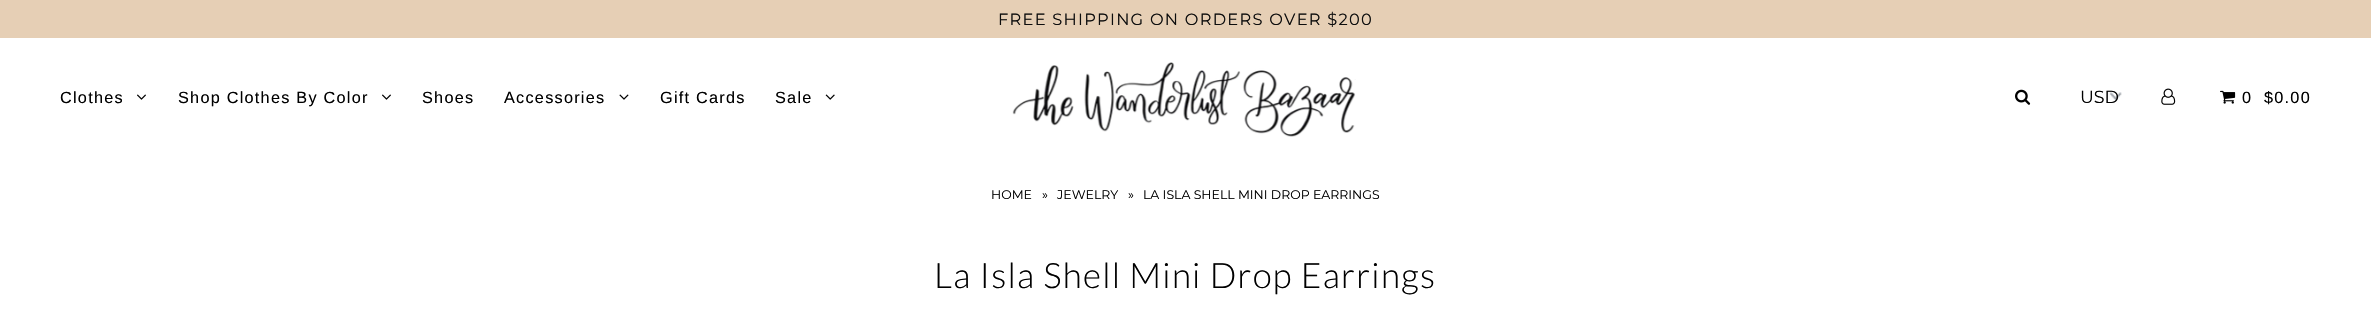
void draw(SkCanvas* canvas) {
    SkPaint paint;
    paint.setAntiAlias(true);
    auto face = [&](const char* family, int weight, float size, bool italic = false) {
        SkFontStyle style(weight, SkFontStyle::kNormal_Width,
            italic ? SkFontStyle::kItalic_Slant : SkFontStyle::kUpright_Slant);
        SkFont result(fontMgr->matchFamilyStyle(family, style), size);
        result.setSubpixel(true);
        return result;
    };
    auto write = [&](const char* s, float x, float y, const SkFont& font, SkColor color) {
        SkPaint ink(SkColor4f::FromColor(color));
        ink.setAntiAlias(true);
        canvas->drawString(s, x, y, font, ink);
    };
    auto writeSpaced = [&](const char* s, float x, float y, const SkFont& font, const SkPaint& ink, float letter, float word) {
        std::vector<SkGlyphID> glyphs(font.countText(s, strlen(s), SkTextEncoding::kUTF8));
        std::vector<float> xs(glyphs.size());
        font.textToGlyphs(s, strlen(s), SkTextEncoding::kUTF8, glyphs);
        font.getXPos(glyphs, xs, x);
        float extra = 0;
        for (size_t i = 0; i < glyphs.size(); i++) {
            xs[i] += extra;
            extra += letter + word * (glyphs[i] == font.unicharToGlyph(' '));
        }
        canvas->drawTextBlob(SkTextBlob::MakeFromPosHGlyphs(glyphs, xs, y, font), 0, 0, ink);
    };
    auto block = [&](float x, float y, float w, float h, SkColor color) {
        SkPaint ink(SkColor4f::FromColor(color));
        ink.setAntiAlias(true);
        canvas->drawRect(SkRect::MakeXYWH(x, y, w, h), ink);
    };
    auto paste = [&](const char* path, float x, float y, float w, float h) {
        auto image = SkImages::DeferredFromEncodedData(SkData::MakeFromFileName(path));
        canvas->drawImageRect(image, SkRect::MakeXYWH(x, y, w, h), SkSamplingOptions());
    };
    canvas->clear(SK_ColorWHITE);
    block(0, 0, 2371, 38, SkColorSetRGB(230, 207, 181));
    auto kFont1 = face("Montserrat", 400, 16.25f);
    paint.setColor(SkColorSetRGB(13, 13, 13));
    writeSpaced("FREE SHIPPING ON ORDERS OVER $200", 998, 25, kFont1, paint, 1.25f, 0);
    auto kFont2 = face("Liberation Sans", 400, 16.25f);
    paint.setColor(SK_ColorBLACK);
    writeSpaced("Clothes", 60, 103, kFont2, paint, 1.25f, 0);
    paste("pic1.png", 137, 94, 9, 6);
    writeSpaced("Shop Clothes By Color", 178, 103, kFont2, paint, 1.25f, 0);
    paste("pic1.png", 382, 94, 9, 6);
    writeSpaced("Shoes", 422, 103, kFont2, paint, 1.25f, 0);
    writeSpaced("Accessories", 504, 103, kFont2, paint, 1.25f, 0);
    paste("pic2.png", 619, 94, 10, 6);
    writeSpaced("Gift Cards", 660, 103, kFont2, paint, 1.25f, 0);
    writeSpaced("Sale", 775, 103, kFont2, paint, 1.25f, 0);
    paste("pic3.png", 825, 94, 10, 6);
    paste("pic4.png", 1012, 62, 344, 75);
    paste("pic5.png", 2015, 89, 16, 16);
    paste("pic6.png", 2109, 92, 13, 9);
    auto kFont3 = face("Montserrat", 400, 17.5f);
    write("USD", 2080, 103, kFont3, SK_ColorBLACK);
    paste("pic7.png", 2161, 88, 15, 17);
    paste("pic8.png", 2220, 90, 16, 14);
    writeSpaced("0", 2242, 103, kFont2, paint, 1.25f, 0);
    writeSpaced("$0.00", 2264, 103, kFont2, paint, 1.25f, 0);
    auto kFont4 = face("Montserrat", 400, 12.5f);
    write("HOME", 991, 199, kFont4, SK_ColorBLACK);
    write("»", 1042, 199, kFont4, SK_ColorBLACK);
    write("JEWELRY", 1057, 199, kFont4, SK_ColorBLACK);
    write("»", 1128, 199, kFont4, SK_ColorBLACK);
    write("LA ISLA SHELL MINI DROP EARRINGS", 1143, 199, kFont4, SK_ColorBLACK);
    auto kFont5 = face("Lato", 300, 35);
    writeSpaced("La Isla Shell Mini Drop Earrings", 934, 288, kFont5, paint, 1.25f, 0);
}
